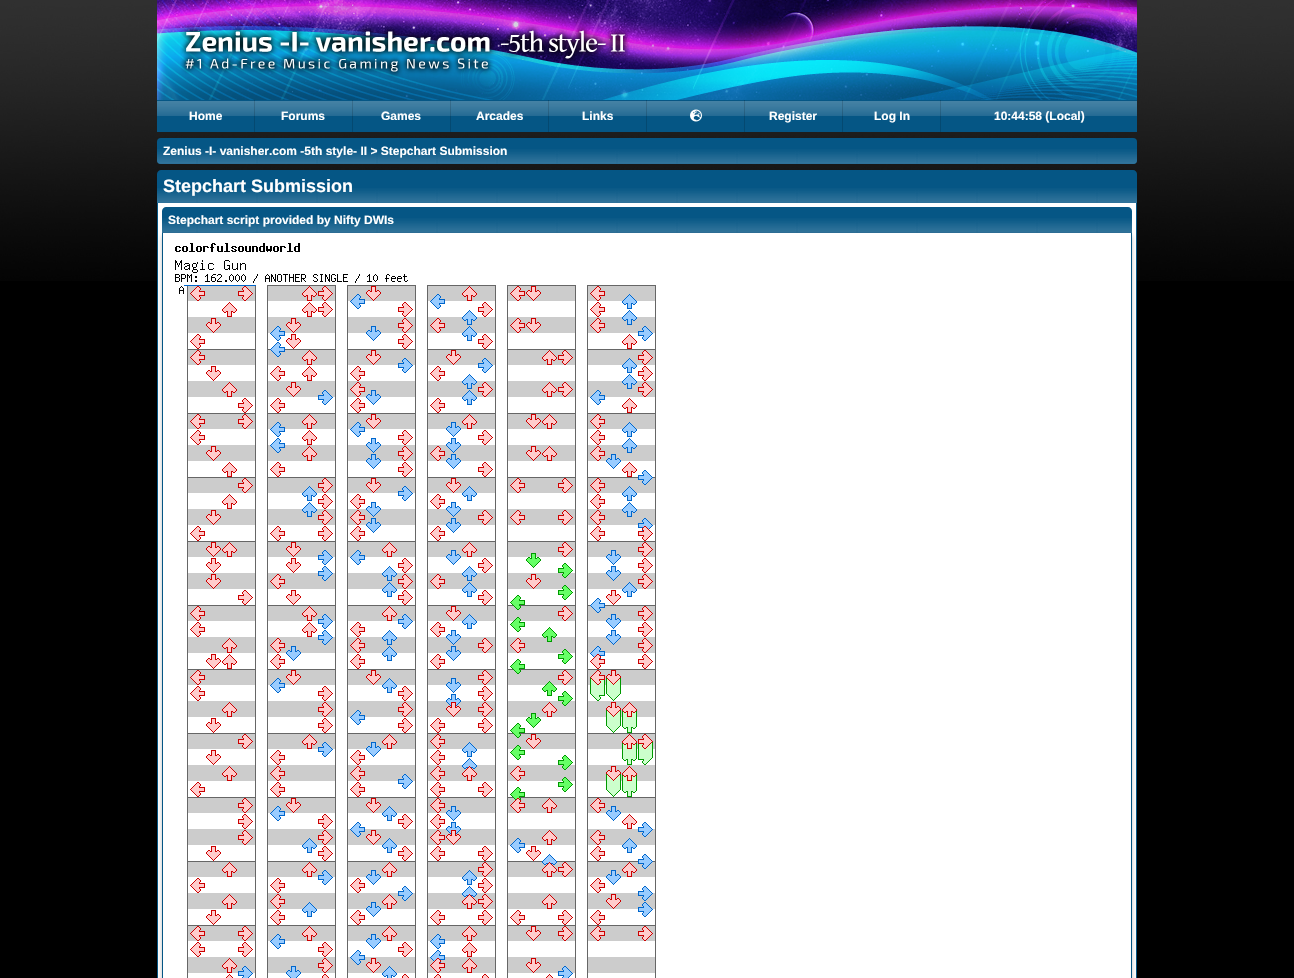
void draw(SkCanvas* canvas) {
    SkPaint paint;
    paint.setAntiAlias(true);
    auto face = [&](const char* family, int weight, float size, bool italic = false) {
        SkFontStyle style(weight, SkFontStyle::kNormal_Width,
            italic ? SkFontStyle::kItalic_Slant : SkFontStyle::kUpright_Slant);
        SkFont result(fontMgr->matchFamilyStyle(family, style), size);
        result.setSubpixel(true);
        return result;
    };
    auto write = [&](const char* s, float x, float y, const SkFont& font, SkColor color) {
        SkPaint ink(SkColor4f::FromColor(color));
        ink.setAntiAlias(true);
        canvas->drawString(s, x, y, font, ink);
    };
    auto block = [&](float x, float y, float w, float h, SkColor color) {
        SkPaint ink(SkColor4f::FromColor(color));
        ink.setAntiAlias(true);
        canvas->drawRect(SkRect::MakeXYWH(x, y, w, h), ink);
    };
    auto card = [&](float x, float y, float w, float h, float radius, SkColor color) {
        SkPaint ink(SkColor4f::FromColor(color));
        ink.setAntiAlias(true);
        canvas->drawRoundRect(SkRect::MakeXYWH(x, y, w, h), radius, radius, ink);
    };
    auto paste = [&](const char* path, float x, float y, float w, float h) {
        auto image = SkImages::DeferredFromEncodedData(SkData::MakeFromFileName(path));
        canvas->drawImageRect(image, SkRect::MakeXYWH(x, y, w, h), SkSamplingOptions());
    };
    canvas->clear(SK_ColorBLACK);
    paste("pic1.png", 0, 0, 1294, 281);
    paste("pic2.png", 157, 0, 980, 100);
    paste("pic3.png", 180, 25, 450, 53);
    block(157, 100, 980, 32, SkColorSetRGB(5, 86, 133));
    paste("pic4.png", 157, 101, 98, 15);
    block(254, 100, 1, 32, SkColorSetARGB(38, 0, 0, 0));
    auto kFont1 = face("Liberation Sans", 700, 12);
    write("Home", 189, 120, kFont1, SK_ColorWHITE);
    paste("pic4.png", 255, 101, 98, 15);
    block(352, 100, 1, 32, SkColorSetARGB(38, 0, 0, 0));
    write("Forums", 281, 120, kFont1, SK_ColorWHITE);
    paste("pic4.png", 353, 101, 98, 15);
    block(450, 100, 1, 32, SkColorSetARGB(38, 0, 0, 0));
    write("Games", 381, 120, kFont1, SK_ColorWHITE);
    paste("pic4.png", 451, 101, 98, 15);
    block(548, 100, 1, 32, SkColorSetARGB(38, 0, 0, 0));
    write("Arcades", 476, 120, kFont1, SK_ColorWHITE);
    paste("pic4.png", 549, 101, 98, 15);
    block(646, 100, 1, 32, SkColorSetARGB(38, 0, 0, 0));
    write("Links", 582, 120, kFont1, SK_ColorWHITE);
    paste("pic4.png", 647, 101, 98, 15);
    block(744, 100, 1, 32, SkColorSetARGB(38, 0, 0, 0));
    paste("pic5.png", 690, 109, 12, 13);
    paste("pic4.png", 745, 101, 98, 15);
    block(842, 100, 1, 32, SkColorSetARGB(38, 0, 0, 0));
    write("Register", 769, 120, kFont1, SK_ColorWHITE);
    paste("pic4.png", 843, 101, 98, 15);
    block(940, 100, 1, 32, SkColorSetARGB(38, 0, 0, 0));
    write("Log In", 874, 120, kFont1, SK_ColorWHITE);
    paste("pic6.png", 941, 101, 196, 15);
    write("10:44:58 (Local)", 994, 120, kFont1, SK_ColorWHITE);
    card(157, 138, 980, 26, 4, SkColorSetRGB(5, 86, 133));
    paste("pic7.png", 157, 149, 980, 15);
    write("Zenius -I- vanisher.com -5th style- II > Stepchart Submission", 163, 155, kFont1, SK_ColorWHITE);
    paint.setColor(SkColorSetRGB(5, 86, 133));
    canvas->drawPath(SkPathBuilder().moveTo(161, 170).lineTo(1133, 170).cubicTo(1135, 170, 1137, 172, 1137, 174).lineTo(1137, 203).lineTo(157, 203).lineTo(157, 174).cubicTo(157, 172, 159, 170, 161, 170).close().detach(), paint);
    paste("pic8.png", 157, 188, 980, 15);
    auto kFont2 = face("Liberation Sans", 700, 18);
    write("Stepchart Submission", 163, 192, kFont2, SK_ColorWHITE);
    block(158, 203, 978, 775, SK_ColorWHITE);
    canvas->drawPath(SkPathBuilder(SkPathFillType::kEvenOdd).moveTo(157, 203).lineTo(1137, 203).lineTo(1137, 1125).cubicTo(1137, 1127, 1135, 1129, 1133, 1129).lineTo(161, 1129).cubicTo(159, 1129, 157, 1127, 157, 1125).close().moveTo(158, 203).lineTo(1136, 203).lineTo(1136, 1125).cubicTo(1136, 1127, 1135, 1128, 1133, 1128).lineTo(161, 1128).cubicTo(159, 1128, 158, 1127, 158, 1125).close().detach(), paint);
    canvas->drawPath(SkPathBuilder().moveTo(166, 207).lineTo(1128, 207).cubicTo(1130, 207, 1132, 209, 1132, 211).lineTo(1132, 233).lineTo(162, 233).lineTo(162, 211).cubicTo(162, 209, 164, 207, 166, 207).close().detach(), paint);
    paste("pic9.png", 162, 218, 970, 15);
    write("Stepchart script provided by Nifty DWIs", 168, 224, kFont1, SK_ColorWHITE);
    canvas->save();
    canvas->clipPath(SkPathBuilder(SkPathFillType::kEvenOdd).moveTo(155, 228).lineTo(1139, 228).lineTo(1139, 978).lineTo(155, 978).close().moveTo(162, 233).lineTo(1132, 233).lineTo(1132, 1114).cubicTo(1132, 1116, 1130, 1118, 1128, 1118).lineTo(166, 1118).cubicTo(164, 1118, 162, 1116, 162, 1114).close().detach(), true);
    paint.setColor(SkColorSetARGB(64, 0, 0, 0));
    paint.setMaskFilter(SkMaskFilter::MakeBlur(kNormal_SkBlurStyle, 2));
    canvas->drawRoundRect(SkRect::MakeXYWH(162, 235, 970, 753), 4, 4, paint);
    paint.setMaskFilter(nullptr);
    canvas->restore();
    paint.setColor(SkColorSetRGB(5, 86, 133));
    canvas->drawPath(SkPathBuilder(SkPathFillType::kEvenOdd).moveTo(162, 233).lineTo(1132, 233).lineTo(1132, 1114).cubicTo(1132, 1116, 1130, 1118, 1128, 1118).lineTo(166, 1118).cubicTo(164, 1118, 162, 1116, 162, 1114).close().moveTo(163, 233).lineTo(1131, 233).lineTo(1131, 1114).cubicTo(1131, 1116, 1130, 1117, 1128, 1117).lineTo(166, 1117).cubicTo(164, 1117, 163, 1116, 163, 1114).close().detach(), paint);
    paste("pic10.png", 175, 243, 481, 735);
}
